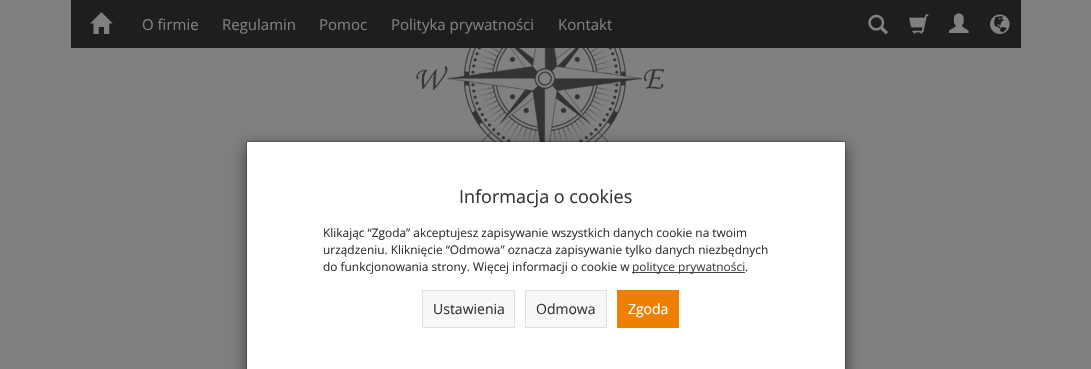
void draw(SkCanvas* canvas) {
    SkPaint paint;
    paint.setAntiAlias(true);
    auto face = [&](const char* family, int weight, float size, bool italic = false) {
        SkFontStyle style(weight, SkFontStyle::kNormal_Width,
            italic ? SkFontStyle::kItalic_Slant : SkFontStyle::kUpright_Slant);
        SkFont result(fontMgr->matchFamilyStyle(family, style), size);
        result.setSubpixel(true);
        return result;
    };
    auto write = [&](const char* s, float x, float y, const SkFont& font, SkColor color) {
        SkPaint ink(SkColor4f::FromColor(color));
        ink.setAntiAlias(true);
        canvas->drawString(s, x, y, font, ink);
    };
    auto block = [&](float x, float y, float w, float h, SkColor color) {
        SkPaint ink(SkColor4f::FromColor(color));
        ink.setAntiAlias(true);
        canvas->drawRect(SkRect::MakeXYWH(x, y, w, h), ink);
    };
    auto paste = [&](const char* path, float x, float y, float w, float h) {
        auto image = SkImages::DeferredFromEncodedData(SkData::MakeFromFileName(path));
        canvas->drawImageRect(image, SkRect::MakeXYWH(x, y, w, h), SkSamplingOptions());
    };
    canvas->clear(SkColorSetRGB(128, 128, 128));
    block(71, 0, 950, 48, SkColorSetRGB(30, 30, 30));
    paste("pic1.png", 90, 12, 23, 22);
    auto kFont1 = face("Open Sans", 400, 15);
    write("O firmie", 142, 30, kFont1, SkColorSetRGB(128, 128, 128));
    write("Regulamin", 222, 30, kFont1, SkColorSetRGB(128, 128, 128));
    write("Pomoc", 319, 30, kFont1, SkColorSetRGB(128, 128, 128));
    write("Polityka prywatności", 391, 30, kFont1, SkColorSetRGB(128, 128, 128));
    write("Kontakt", 558, 30, kFont1, SkColorSetRGB(128, 128, 128));
    paste("pic2.png", 868, 14, 20, 21);
    paste("pic3.png", 909, 14, 20, 20);
    paste("pic4.png", 949, 13, 20, 20);
    paste("pic5.png", 990, 14, 20, 20);
    paste("pic6.png", 416, 48, 248, 94);
    paint.setColor(SkColorSetARGB(128, 0, 0, 0));
    paint.setMaskFilter(SkMaskFilter::MakeBlur(kNormal_SkBlurStyle, 7.5f));
    canvas->drawRect(SkRect::MakeXYWH(246, 146, 600, 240), paint);
    paint.setMaskFilter(nullptr);
    block(247, 142, 598, 227, SK_ColorWHITE);
    paint.setStyle(SkPaint::kStroke_Style);
    paint.setStrokeWidth(1);
    paint.setColor(SkColorSetARGB(51, 0, 0, 0));
    canvas->drawRect(SkRect::MakeXYWH(246.5f, 141.5f, 599, 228), paint);
    auto kFont2 = face("Open Sans", 400, 18);
    write("Informacja o cookies", 459, 203, kFont2, SkColorSetRGB(51, 51, 51));
    auto kFont3 = face("Open Sans", 400, 11.9f);
    write("Klikając “Zgoda” akceptujesz zapisywanie wszystkich danych cookie na twoim", 323, 237, kFont3, SkColorSetRGB(51, 51, 51));
    write("urządzeniu. Kliknięcie “Odmowa” oznacza zapisywanie tylko danych niezbędnych", 323, 254, kFont3, SkColorSetRGB(51, 51, 51));
    write("do funkcjonowania strony. Więcej informacji o cookie w", 323, 271, kFont3, SkColorSetRGB(51, 51, 51));
    block(632, 272, 113, 1, SkColorSetRGB(68, 68, 68));
    write("polityce prywatności", 632, 271, kFont3, SkColorSetRGB(68, 68, 68));
    write(".", 745, 271, kFont3, SkColorSetRGB(51, 51, 51));
    paint.setStyle(SkPaint::kFill_Style);
    paint.setColor(SkColorSetRGB(247, 247, 247));
    canvas->drawRect(SkRect::MakeXYWH(422.5f, 290.5f, 92, 37), paint);
    paint.setStyle(SkPaint::kStroke_Style);
    paint.setColor(SkColorSetRGB(223, 223, 223));
    canvas->drawRect(SkRect::MakeXYWH(422.5f, 290.5f, 92, 37), paint);
    auto kFont4 = face("Open Sans", 400, 14);
    write("Ustawienia", 433, 314, kFont4, SkColorSetRGB(51, 51, 51));
    paint.setStyle(SkPaint::kFill_Style);
    paint.setColor(SkColorSetRGB(247, 247, 247));
    canvas->drawRect(SkRect::MakeXYWH(525.5f, 290.5f, 81, 37), paint);
    paint.setStyle(SkPaint::kStroke_Style);
    paint.setColor(SkColorSetRGB(223, 223, 223));
    canvas->drawRect(SkRect::MakeXYWH(525.5f, 290.5f, 81, 37), paint);
    write("Odmowa", 536, 314, kFont4, SkColorSetRGB(51, 51, 51));
    block(617, 290, 62, 38, SkColorSetRGB(239, 127, 1));
    write("Zgoda", 628, 314, kFont4, SK_ColorWHITE);
}
